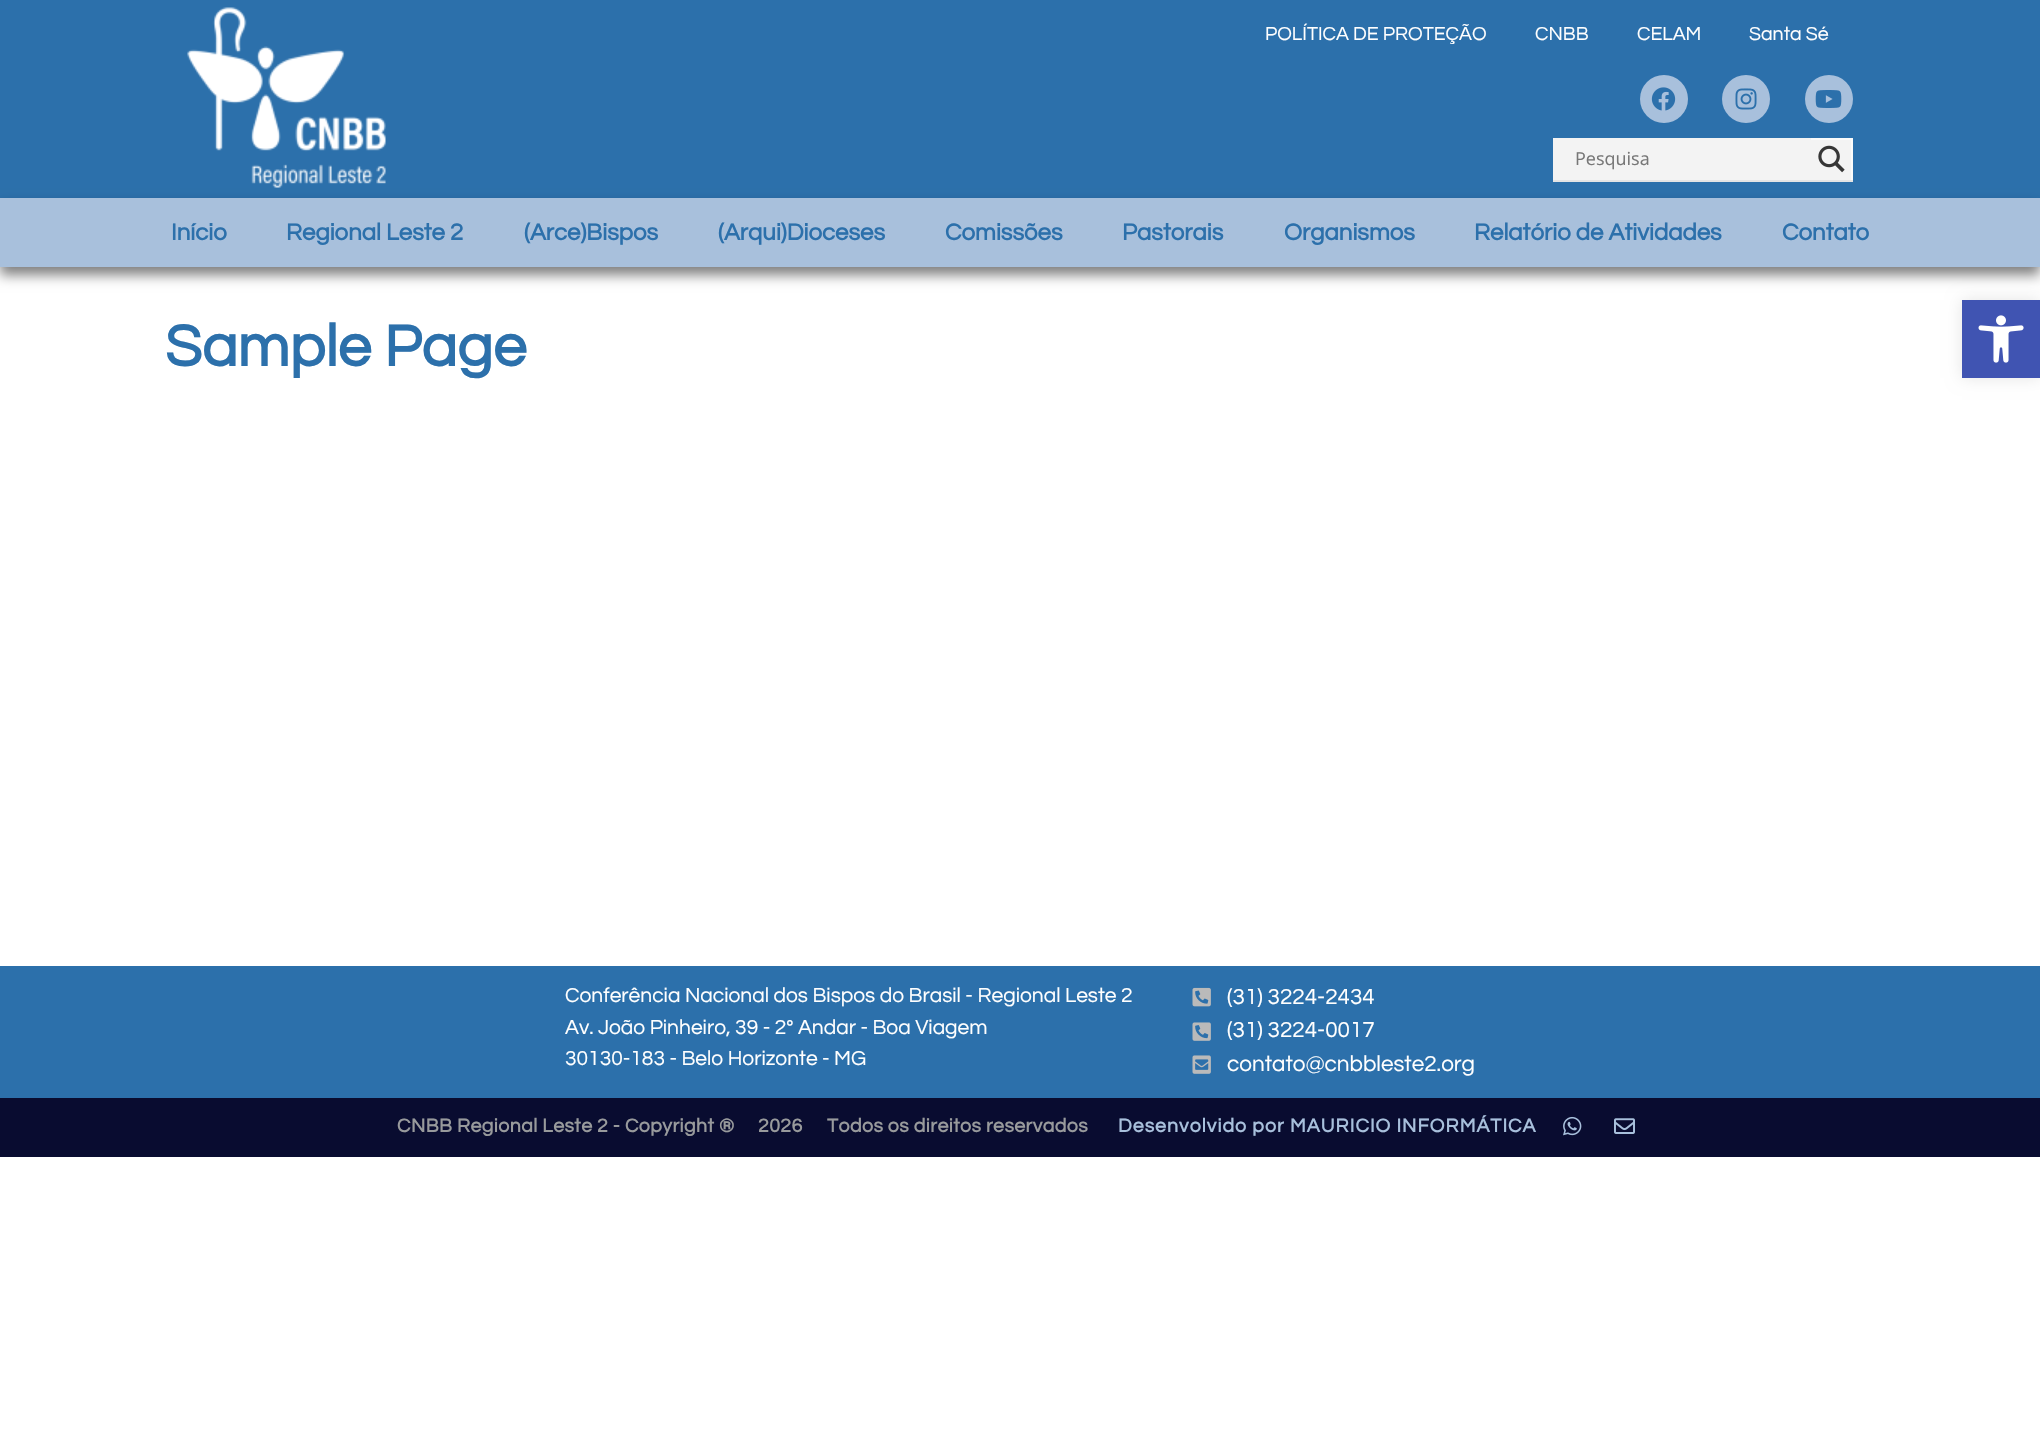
void draw(SkCanvas* canvas) {
    SkPaint paint;
    paint.setAntiAlias(true);
    auto face = [&](const char* family, int weight, float size, bool italic = false) {
        SkFontStyle style(weight, SkFontStyle::kNormal_Width,
            italic ? SkFontStyle::kItalic_Slant : SkFontStyle::kUpright_Slant);
        SkFont result(fontMgr->matchFamilyStyle(family, style), size);
        result.setSubpixel(true);
        return result;
    };
    auto write = [&](const char* s, float x, float y, const SkFont& font, SkColor color) {
        SkPaint ink(SkColor4f::FromColor(color));
        ink.setAntiAlias(true);
        canvas->drawString(s, x, y, font, ink);
    };
    auto writeSpaced = [&](const char* s, float x, float y, const SkFont& font, const SkPaint& ink, float letter, float word) {
        std::vector<SkGlyphID> glyphs(font.countText(s, strlen(s), SkTextEncoding::kUTF8));
        std::vector<float> xs(glyphs.size());
        font.textToGlyphs(s, strlen(s), SkTextEncoding::kUTF8, glyphs);
        font.getXPos(glyphs, xs, x);
        float extra = 0;
        for (size_t i = 0; i < glyphs.size(); i++) {
            xs[i] += extra;
            extra += letter + word * (glyphs[i] == font.unicharToGlyph(' '));
        }
        canvas->drawTextBlob(SkTextBlob::MakeFromPosHGlyphs(glyphs, xs, y, font), 0, 0, ink);
    };
    auto block = [&](float x, float y, float w, float h, SkColor color) {
        SkPaint ink(SkColor4f::FromColor(color));
        ink.setAntiAlias(true);
        canvas->drawRect(SkRect::MakeXYWH(x, y, w, h), ink);
    };
    auto paste = [&](const char* path, float x, float y, float w, float h) {
        auto image = SkImages::DeferredFromEncodedData(SkData::MakeFromFileName(path));
        canvas->drawImageRect(image, SkRect::MakeXYWH(x, y, w, h), SkSamplingOptions());
    };
    canvas->clear(SK_ColorWHITE);
    block(0, 0, 2040, 198, SkColorSetRGB(44, 112, 171));
    paste("pic1.png", 187, 7, 199, 181);
    auto kFont1 = face("Questrial", 400, 19.5f);
    write("POLÍTICA DE PROTEÇÃO", 1265, 40, kFont1, SK_ColorWHITE);
    write("CNBB", 1535, 40, kFont1, SK_ColorWHITE);
    write("CELAM", 1637, 40, kFont1, SK_ColorWHITE);
    write("Santa Sé", 1749, 40, kFont1, SK_ColorWHITE);
    paint.setColor(SkColorSetRGB(168, 192, 220));
    canvas->drawCircle(1664, 99, 24, paint);
    paste("pic2.png", 1651, 87, 25, 24);
    canvas->drawCircle(1746, 99, 24, paint);
    paste("pic3.png", 1735, 88, 22, 22);
    canvas->drawCircle(1829, 99, 24, paint);
    paste("pic4.png", 1815, 90, 27, 18);
    paint.setColor(SkColorSetRGB(228, 228, 228));
    canvas->drawPath(SkPathBuilder().moveTo(1553, 180).lineTo(1553, 182).lineTo(1853, 182).lineTo(1853, 140).lineTo(1852, 140).lineTo(1852, 180).close().detach(), paint);
    block(1553, 138, 298, 42, SkColorSetRGB(243, 243, 243));
    auto kFont2 = face("Open Sans", 400, 18);
    write("Pesquisa", 1575, 165, kFont2, SkColorSetRGB(119, 119, 119));
    canvas->save();
    canvas->clipRect(SkRect::MakeXYWH(1811, 138, 42, 42));
    paint.setColor(SkColorSetRGB(251, 251, 251));
    canvas->drawPath(SkPathBuilder(SkPathFillType::kEvenOdd).moveTo(1662, -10).lineTo(2001, -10).lineTo(2001, 328).lineTo(1662, 328).close().moveTo(1809, 140).lineTo(1851, 140).lineTo(1851, 182).lineTo(1809, 182).close().detach(), paint);
    canvas->restore();
    paste("pic5.png", 1818, 145, 27, 28);
    paint.setColor(SkColorSetARGB(128, 0, 0, 0));
    paint.setMaskFilter(SkMaskFilter::MakeBlur(kNormal_SkBlurStyle, 6));
    canvas->drawRect(SkRect::MakeXYWH(0, 206, 2040, 69), paint);
    paint.setMaskFilter(nullptr);
    block(0, 198, 2040, 69, SkColorSetRGB(168, 192, 220));
    auto kFont3 = face("Questrial", 700, 24);
    write("Início", 171, 240, kFont3, SkColorSetRGB(44, 112, 171));
    write("Regional Leste 2", 286, 240, kFont3, SkColorSetRGB(44, 112, 171));
    write("(Arce)Bispos", 524, 240, kFont3, SkColorSetRGB(44, 112, 171));
    write("(Arqui)Dioceses", 718, 240, kFont3, SkColorSetRGB(44, 112, 171));
    write("Comissões", 945, 240, kFont3, SkColorSetRGB(44, 112, 171));
    write("Pastorais", 1122, 240, kFont3, SkColorSetRGB(44, 112, 171));
    write("Organismos", 1284, 240, kFont3, SkColorSetRGB(44, 112, 171));
    write("Relatório de Atividades", 1474, 240, kFont3, SkColorSetRGB(44, 112, 171));
    write("Contato", 1782, 240, kFont3, SkColorSetRGB(44, 112, 171));
    auto kFont4 = face("Questrial", 700, 60);
    write("Sample Page", 165, 366, kFont4, SkColorSetRGB(44, 112, 171));
    paint.setColor(SkColorSetARGB(26, 0, 0, 0));
    paint.setMaskFilter(SkMaskFilter::MakeBlur(kNormal_SkBlurStyle, 7.5f));
    canvas->drawRect(SkRect::MakeXYWH(1962, 300, 78, 78), paint);
    paint.setMaskFilter(nullptr);
    block(1962, 300, 78, 78, SkColorSetRGB(64, 84, 178));
    paste("pic6.png", 1978, 315, 46, 48);
    block(0, 966, 2040, 132, SkColorSetRGB(44, 112, 171));
    auto kFont5 = face("Questrial", 400, 21);
    write("Conferência Nacional dos Bispos do Brasil - Regional Leste 2", 565, 1002, kFont5, SK_ColorWHITE);
    write("Av. João Pinheiro, 39 - 2º Andar - Boa Viagem", 565, 1034, kFont5, SK_ColorWHITE);
    write("30130-183 - Belo Horizonte - MG", 565, 1065, kFont5, SK_ColorWHITE);
    paste("pic7.png", 1192, 987, 19, 20);
    auto kFont6 = face("Questrial", 400, 22.5f);
    write("(31) 3224-2434", 1227, 1004, kFont6, SK_ColorWHITE);
    paste("pic8.png", 1192, 1022, 19, 19);
    write("(31) 3224-0017", 1227, 1037, kFont6, SK_ColorWHITE);
    paste("pic9.png", 1192, 1055, 19, 19);
    write("contato@cnbbleste2.org", 1227, 1071, kFont6, SK_ColorWHITE);
    block(0, 1098, 2040, 59, SkColorSetRGB(9, 12, 48));
    auto kFont7 = face("Questrial", 700, 19.5f);
    paint.setColor(SkColorSetRGB(152, 154, 156));
    writeSpaced("CNBB Regional Leste 2 - Copyright ®", 397, 1132, kFont7, paint, 0.45f, 0);
    writeSpaced("2026", 758, 1132, kFont7, paint, 0.45f, 0);
    writeSpaced("Todos os direitos reservados", 827, 1132, kFont7, paint, 0.45f, 0);
    paint.setColor(SkColorSetRGB(168, 192, 220));
    writeSpaced("Desenvolvido por MAURICIO INFORMÁTICA", 1118, 1132, kFont7, paint, 1.05f, 0);
    paste("pic10.png", 1563, 1116, 19, 20);
    paste("pic11.png", 1614, 1118, 21, 16);
}
